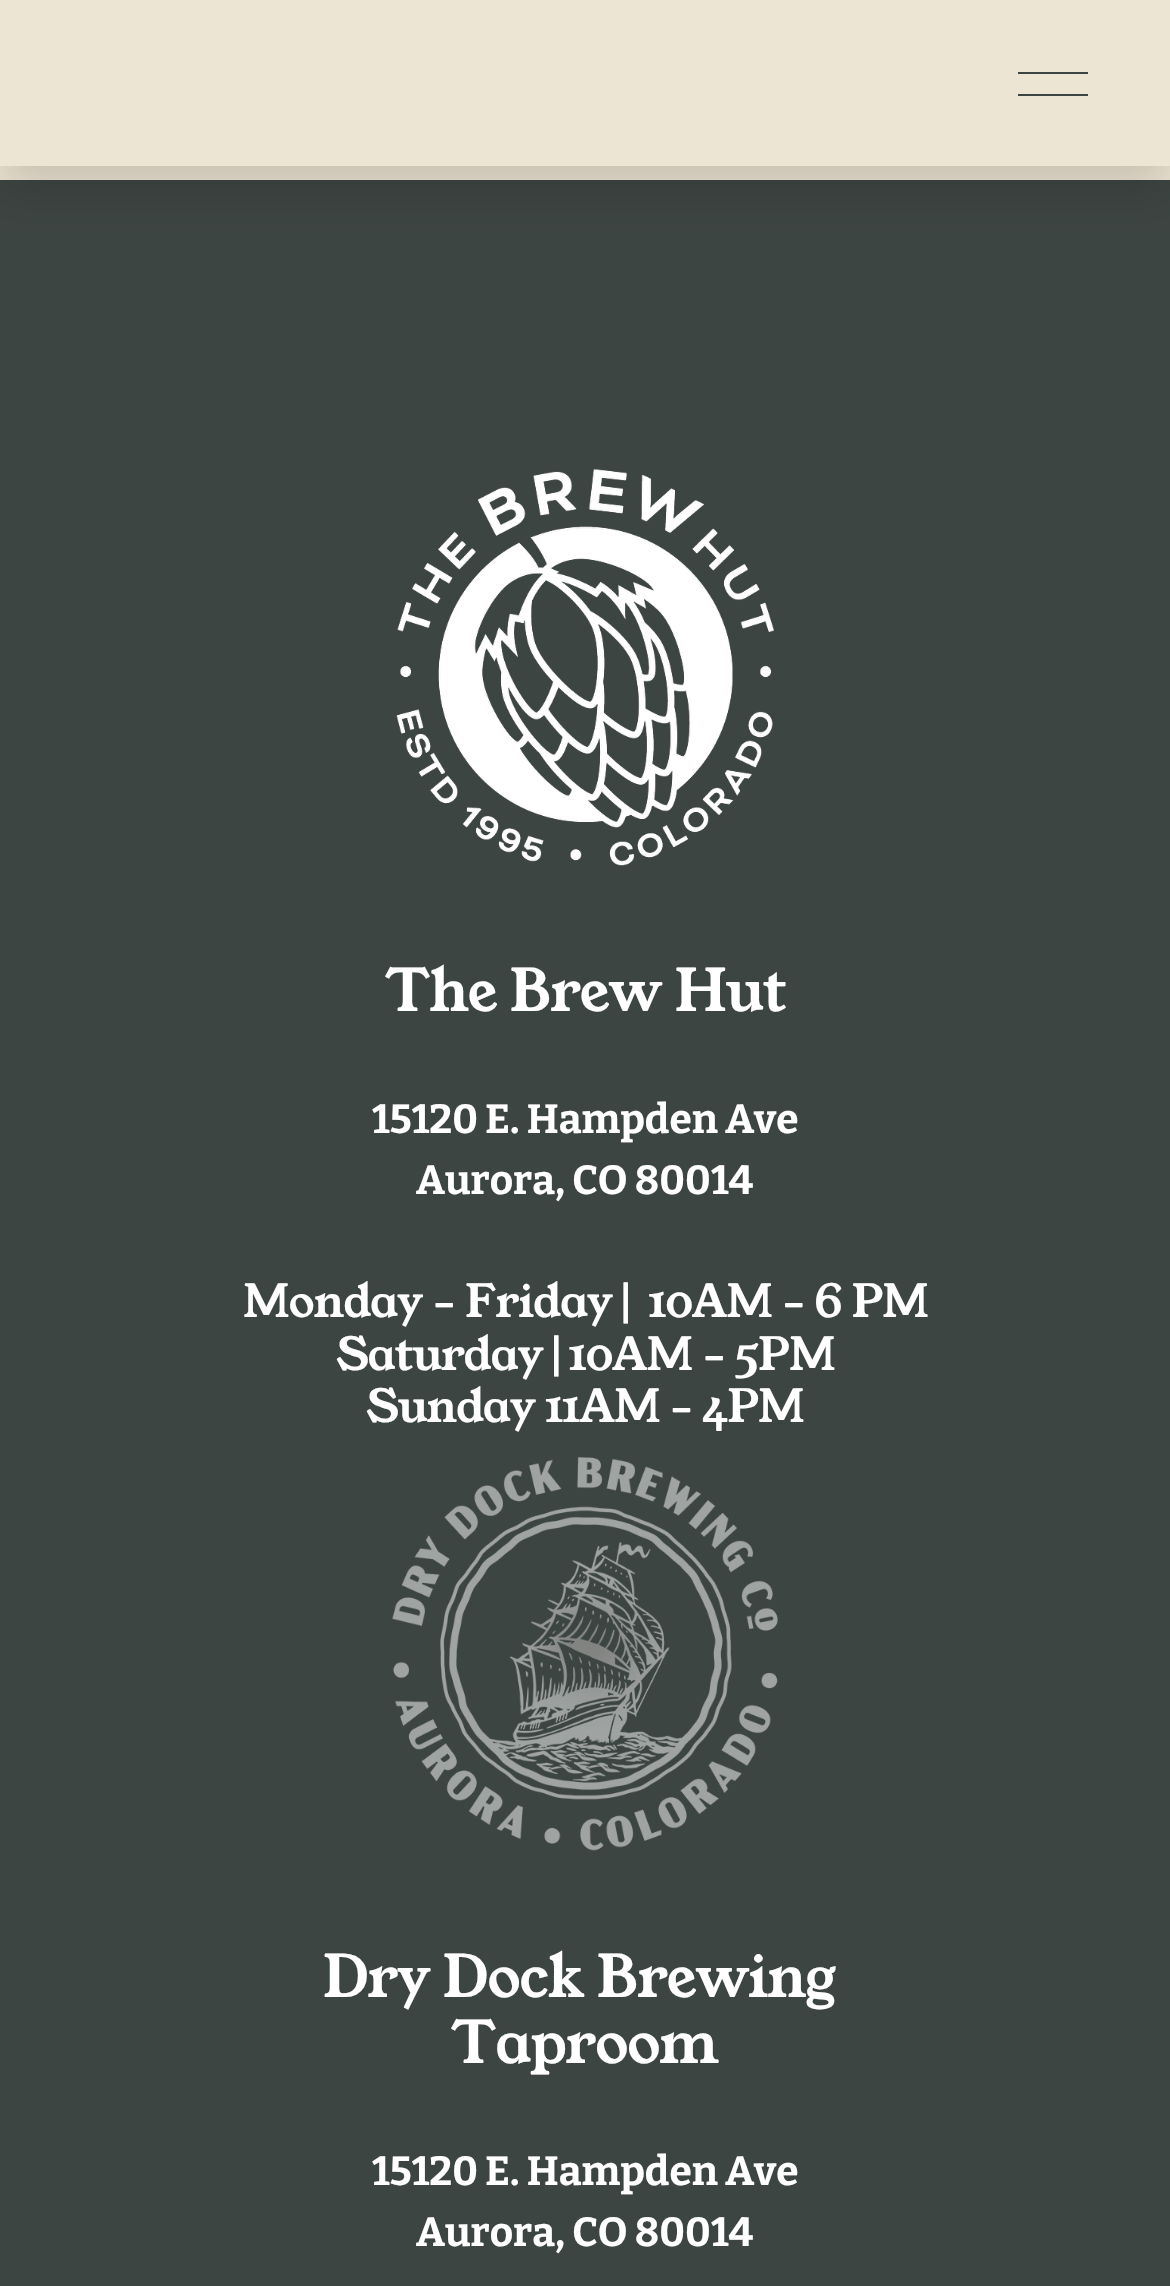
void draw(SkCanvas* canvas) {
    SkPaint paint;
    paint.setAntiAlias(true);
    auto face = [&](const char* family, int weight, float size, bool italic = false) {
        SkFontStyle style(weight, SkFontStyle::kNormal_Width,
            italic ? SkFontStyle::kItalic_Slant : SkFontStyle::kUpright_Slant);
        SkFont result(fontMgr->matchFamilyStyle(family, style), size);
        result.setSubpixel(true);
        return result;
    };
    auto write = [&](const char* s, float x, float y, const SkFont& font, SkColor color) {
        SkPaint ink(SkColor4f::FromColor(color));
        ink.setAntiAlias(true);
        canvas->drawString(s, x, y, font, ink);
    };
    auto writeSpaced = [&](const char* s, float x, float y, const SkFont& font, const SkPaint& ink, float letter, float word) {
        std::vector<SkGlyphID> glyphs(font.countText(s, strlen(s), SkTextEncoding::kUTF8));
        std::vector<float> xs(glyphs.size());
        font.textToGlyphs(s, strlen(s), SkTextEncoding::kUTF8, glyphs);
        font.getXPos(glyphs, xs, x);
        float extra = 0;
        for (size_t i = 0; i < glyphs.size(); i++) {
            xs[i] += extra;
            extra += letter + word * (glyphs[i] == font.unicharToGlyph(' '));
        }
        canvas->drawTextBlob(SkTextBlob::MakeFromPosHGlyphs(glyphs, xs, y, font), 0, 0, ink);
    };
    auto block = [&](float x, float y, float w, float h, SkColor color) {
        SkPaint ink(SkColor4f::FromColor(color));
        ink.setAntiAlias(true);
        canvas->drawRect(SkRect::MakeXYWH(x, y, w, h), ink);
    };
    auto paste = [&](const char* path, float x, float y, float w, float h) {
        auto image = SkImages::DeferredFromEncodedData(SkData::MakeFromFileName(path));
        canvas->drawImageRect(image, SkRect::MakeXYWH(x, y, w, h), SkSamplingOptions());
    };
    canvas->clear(SkColorSetRGB(237, 229, 211));
    block(0, 180, 1170, 2106, SkColorSetRGB(61, 69, 67));
    paint.setColor(SkColorSetARGB(38, 0, 0, 0));
    paint.setMaskFilter(SkMaskFilter::MakeBlur(kNormal_SkBlurStyle, 21));
    canvas->drawRect(SkRect::MakeXYWH(0, 24, 1170, 166), paint);
    paint.setMaskFilter(nullptr);
    block(0, 0, 1170, 166, SkColorSetRGB(237, 229, 211));
    block(1018, 72, 70, 2, SkColorSetRGB(61, 69, 67));
    block(1018, 94, 70, 2, SkColorSetRGB(61, 69, 67));
    paste("pic1.png", 396, 468, 378, 398);
    auto kFont1 = face("Young Serif", 400, 58);
    paint.setColor(SK_ColorWHITE);
    writeSpaced("The Brew Hut", 385, 1011, kFont1, paint, -1.2f, 0);
    auto kFont2 = face("Bitter", 700, 40.6f);
    write("15120 E. Hampden Ave", 372, 1133, kFont2, SK_ColorWHITE);
    write("Aurora, CO 80014", 416, 1194, kFont2, SK_ColorWHITE);
    auto kFont3 = face("Young Serif", 400, 45);
    writeSpaced("Monday - Friday| 10AM - 6 PM", 243, 1317, kFont3, paint, -0.9f, 0);
    writeSpaced("Saturday|10AM - 5PM", 336, 1370, kFont3, paint, -0.9f, 0);
    writeSpaced("Sunday 11AM - 4PM", 366, 1422, kFont3, paint, -0.9f, 0);
    paste("pic2.png", 392, 1457, 386, 394);
    writeSpaced("Dry Dock Brewing", 323, 1997, kFont1, paint, -1.2f, 0);
    writeSpaced("Taproom", 451, 2063, kFont1, paint, -1.2f, 0);
    write("15120 E. Hampden Ave", 372, 2185, kFont2, SK_ColorWHITE);
    write("Aurora, CO 80014", 416, 2246, kFont2, SK_ColorWHITE);
}
